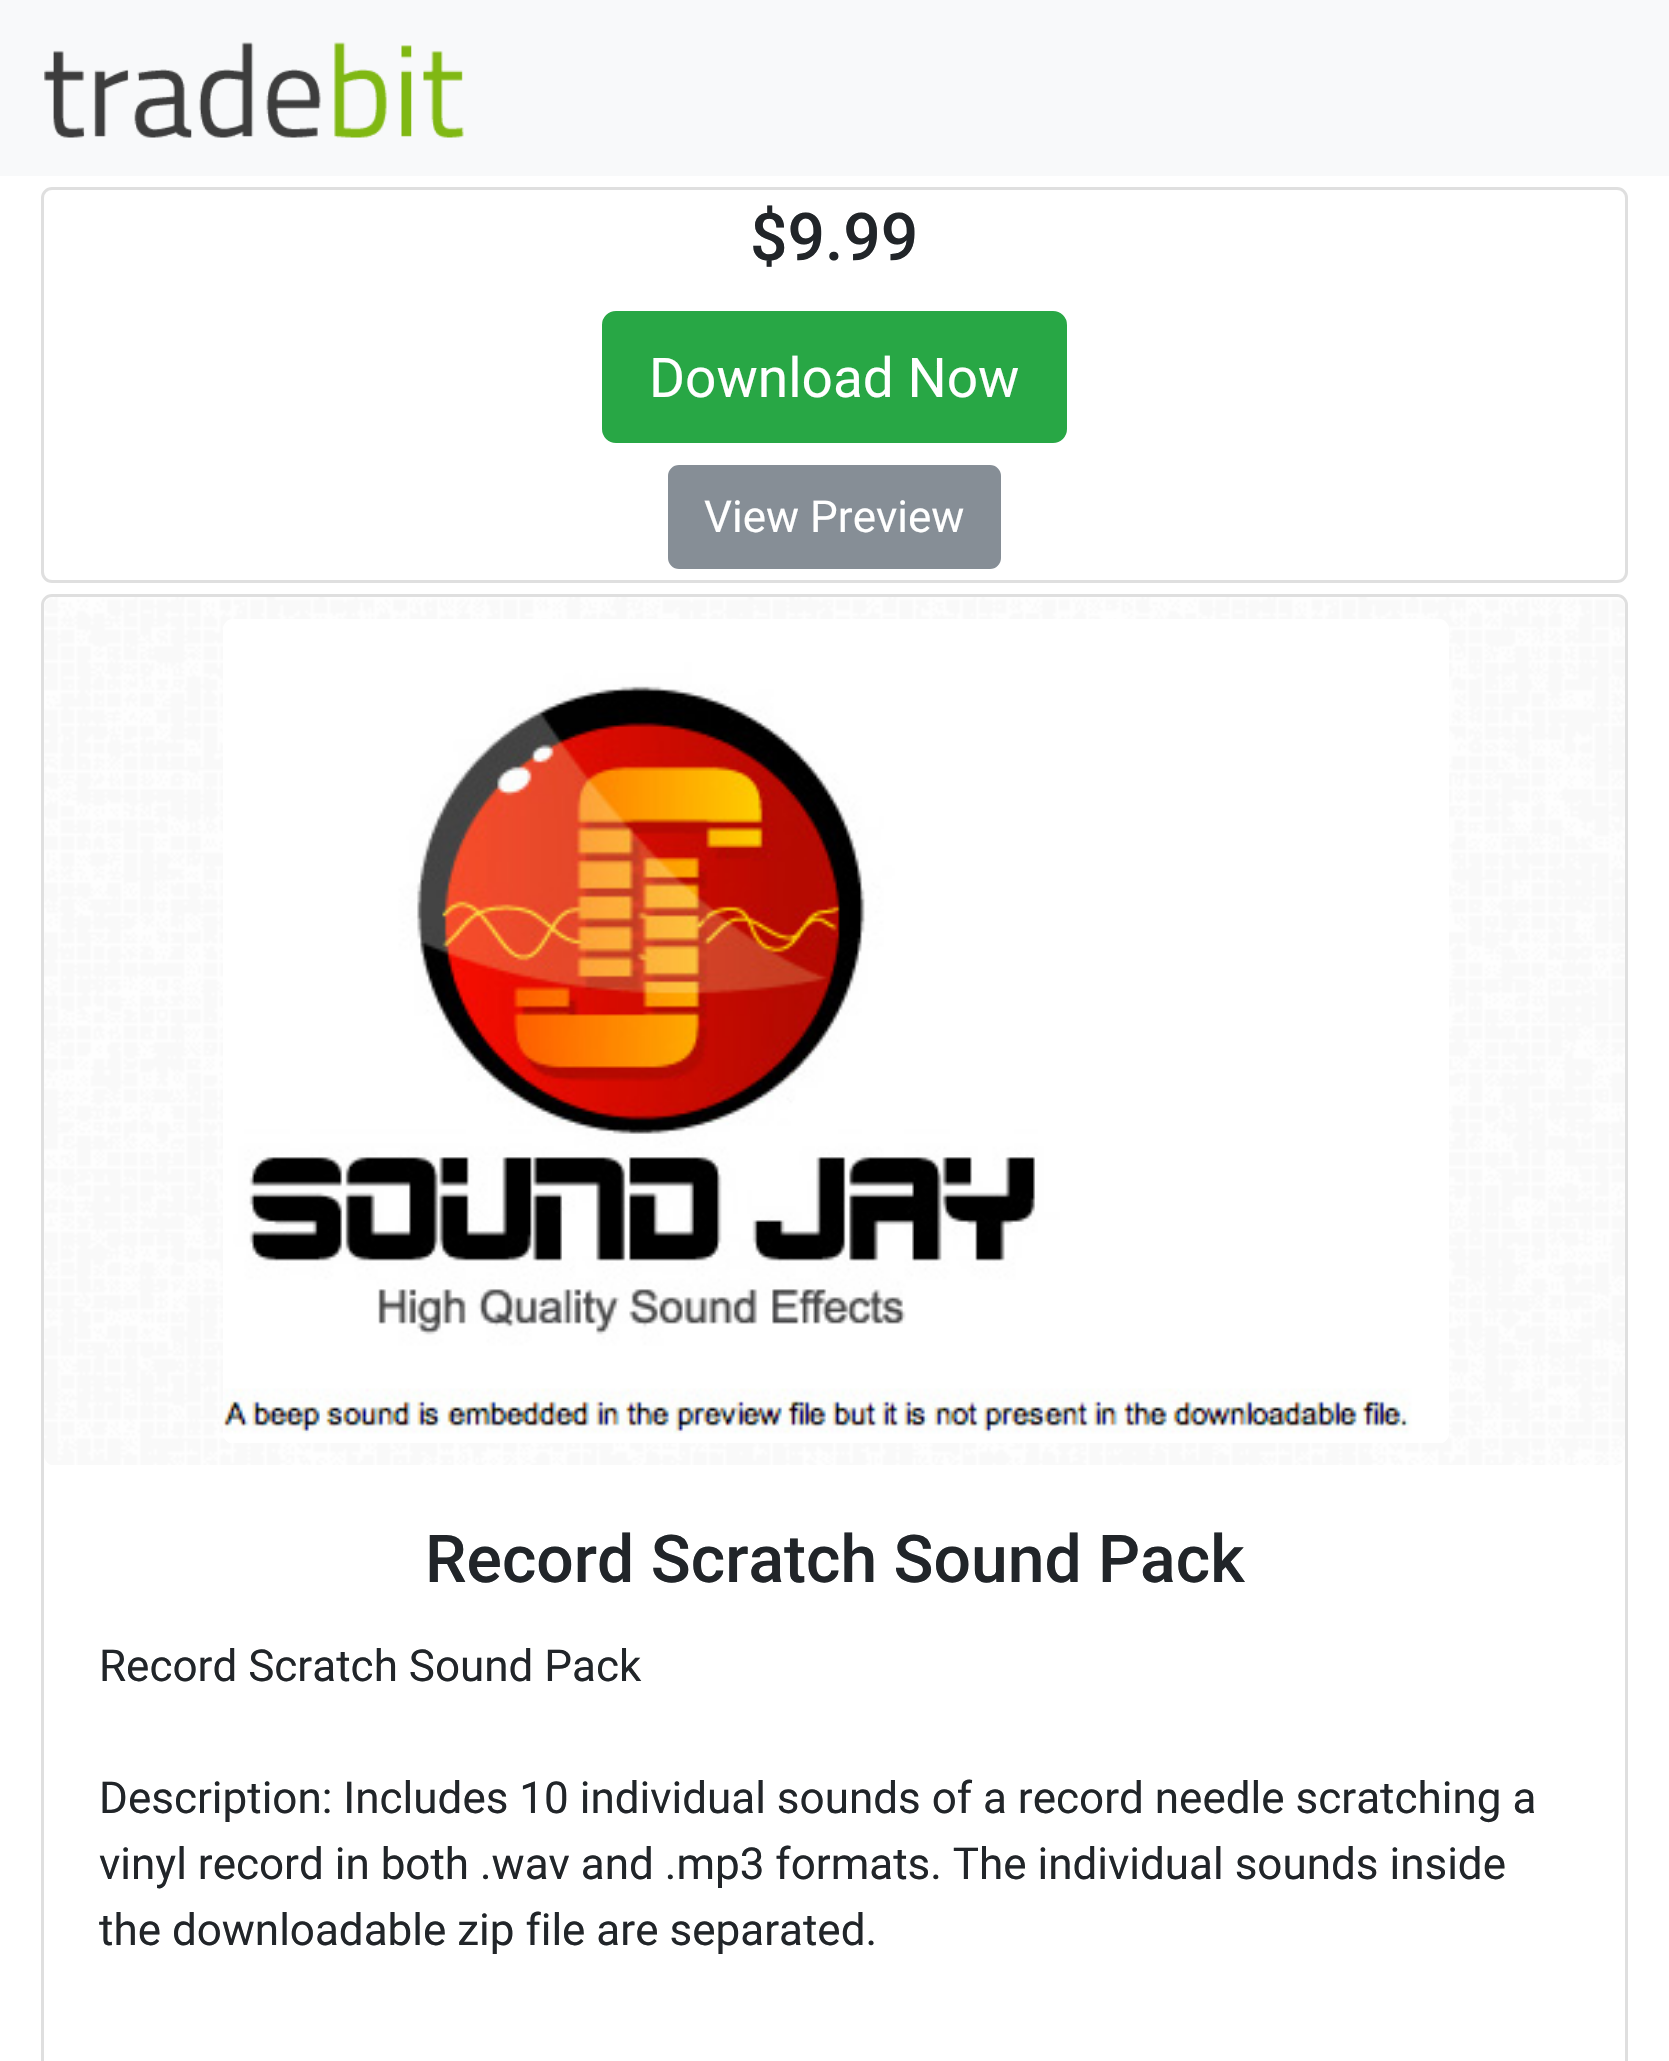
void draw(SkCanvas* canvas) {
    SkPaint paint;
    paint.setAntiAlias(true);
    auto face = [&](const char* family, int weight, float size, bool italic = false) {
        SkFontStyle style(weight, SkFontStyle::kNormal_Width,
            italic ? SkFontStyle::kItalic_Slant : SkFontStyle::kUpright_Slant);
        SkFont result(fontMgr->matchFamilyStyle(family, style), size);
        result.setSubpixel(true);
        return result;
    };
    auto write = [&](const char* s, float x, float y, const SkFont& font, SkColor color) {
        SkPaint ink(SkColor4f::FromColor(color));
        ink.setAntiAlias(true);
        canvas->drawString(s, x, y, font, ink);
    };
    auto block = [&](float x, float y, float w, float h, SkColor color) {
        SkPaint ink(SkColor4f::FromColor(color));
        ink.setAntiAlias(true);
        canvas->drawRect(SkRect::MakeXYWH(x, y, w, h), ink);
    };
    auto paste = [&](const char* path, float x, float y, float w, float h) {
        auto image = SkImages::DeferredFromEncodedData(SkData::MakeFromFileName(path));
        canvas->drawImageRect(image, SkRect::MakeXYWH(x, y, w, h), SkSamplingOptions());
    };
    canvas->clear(SK_ColorWHITE);
    block(0, 0, 1669, 176, SkColorSetRGB(248, 249, 250));
    paste("pic1.png", 44, 42, 420, 96);
    paint.setStyle(SkPaint::kStroke_Style);
    paint.setStrokeWidth(3);
    paint.setColor(SkColorSetRGB(223, 223, 223));
    canvas->drawRoundRect(SkRect::MakeXYWH(42.5f, 188.5f, 1584, 393), 9.5f, 9.5f, paint);
    auto kFont1 = face("Roboto", 500, 66);
    write("$9.99", 750, 260, kFont1, SkColorSetRGB(33, 37, 41));
    paint.setStyle(SkPaint::kFill_Style);
    paint.setColor(SkColorSetRGB(40, 167, 69));
    canvas->drawRoundRect(SkRect::MakeXYWH(603.5f, 312.5f, 462, 129), 12.5f, 12.5f, paint);
    paint.setStyle(SkPaint::kStroke_Style);
    canvas->drawRoundRect(SkRect::MakeXYWH(603.5f, 312.5f, 462, 129), 12.5f, 12.5f, paint);
    auto kFont2 = face("Roboto", 400, 55);
    write("Download Now", 649, 397, kFont2, SK_ColorWHITE);
    paint.setStyle(SkPaint::kFill_Style);
    paint.setColor(SkColorSetRGB(134, 142, 150));
    canvas->drawRoundRect(SkRect::MakeXYWH(669.5f, 466.5f, 330, 101), 9.5f, 9.5f, paint);
    paint.setStyle(SkPaint::kStroke_Style);
    canvas->drawRoundRect(SkRect::MakeXYWH(669.5f, 466.5f, 330, 101), 9.5f, 9.5f, paint);
    auto kFont3 = face("Roboto", 400, 44);
    write("View Preview", 704, 532, kFont3, SK_ColorWHITE);
    paint.setColor(SkColorSetRGB(223, 223, 223));
    canvas->drawRoundRect(SkRect::MakeXYWH(42.5f, 595.5f, 1584, 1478), 9.5f, 9.5f, paint);
    paste("pic2.png", 44, 597, 1581, 868);
    paste("pic3.png", 223, 619, 1226, 824);
    write("Record Scratch Sound Pack", 425, 1582, kFont1, SkColorSetRGB(33, 37, 41));
    write("Record Scratch Sound Pack", 99, 1681, kFont3, SkColorSetRGB(33, 37, 41));
    write("Description: Includes 10 individual sounds of a record needle scratching a", 99, 1813, kFont3, SkColorSetRGB(33, 37, 41));
    write("vinyl record in both .wav and .mp3 formats. The individual sounds inside", 99, 1879, kFont3, SkColorSetRGB(33, 37, 41));
    write("the downloadable zip file are separated.", 99, 1945, kFont3, SkColorSetRGB(33, 37, 41));
}
